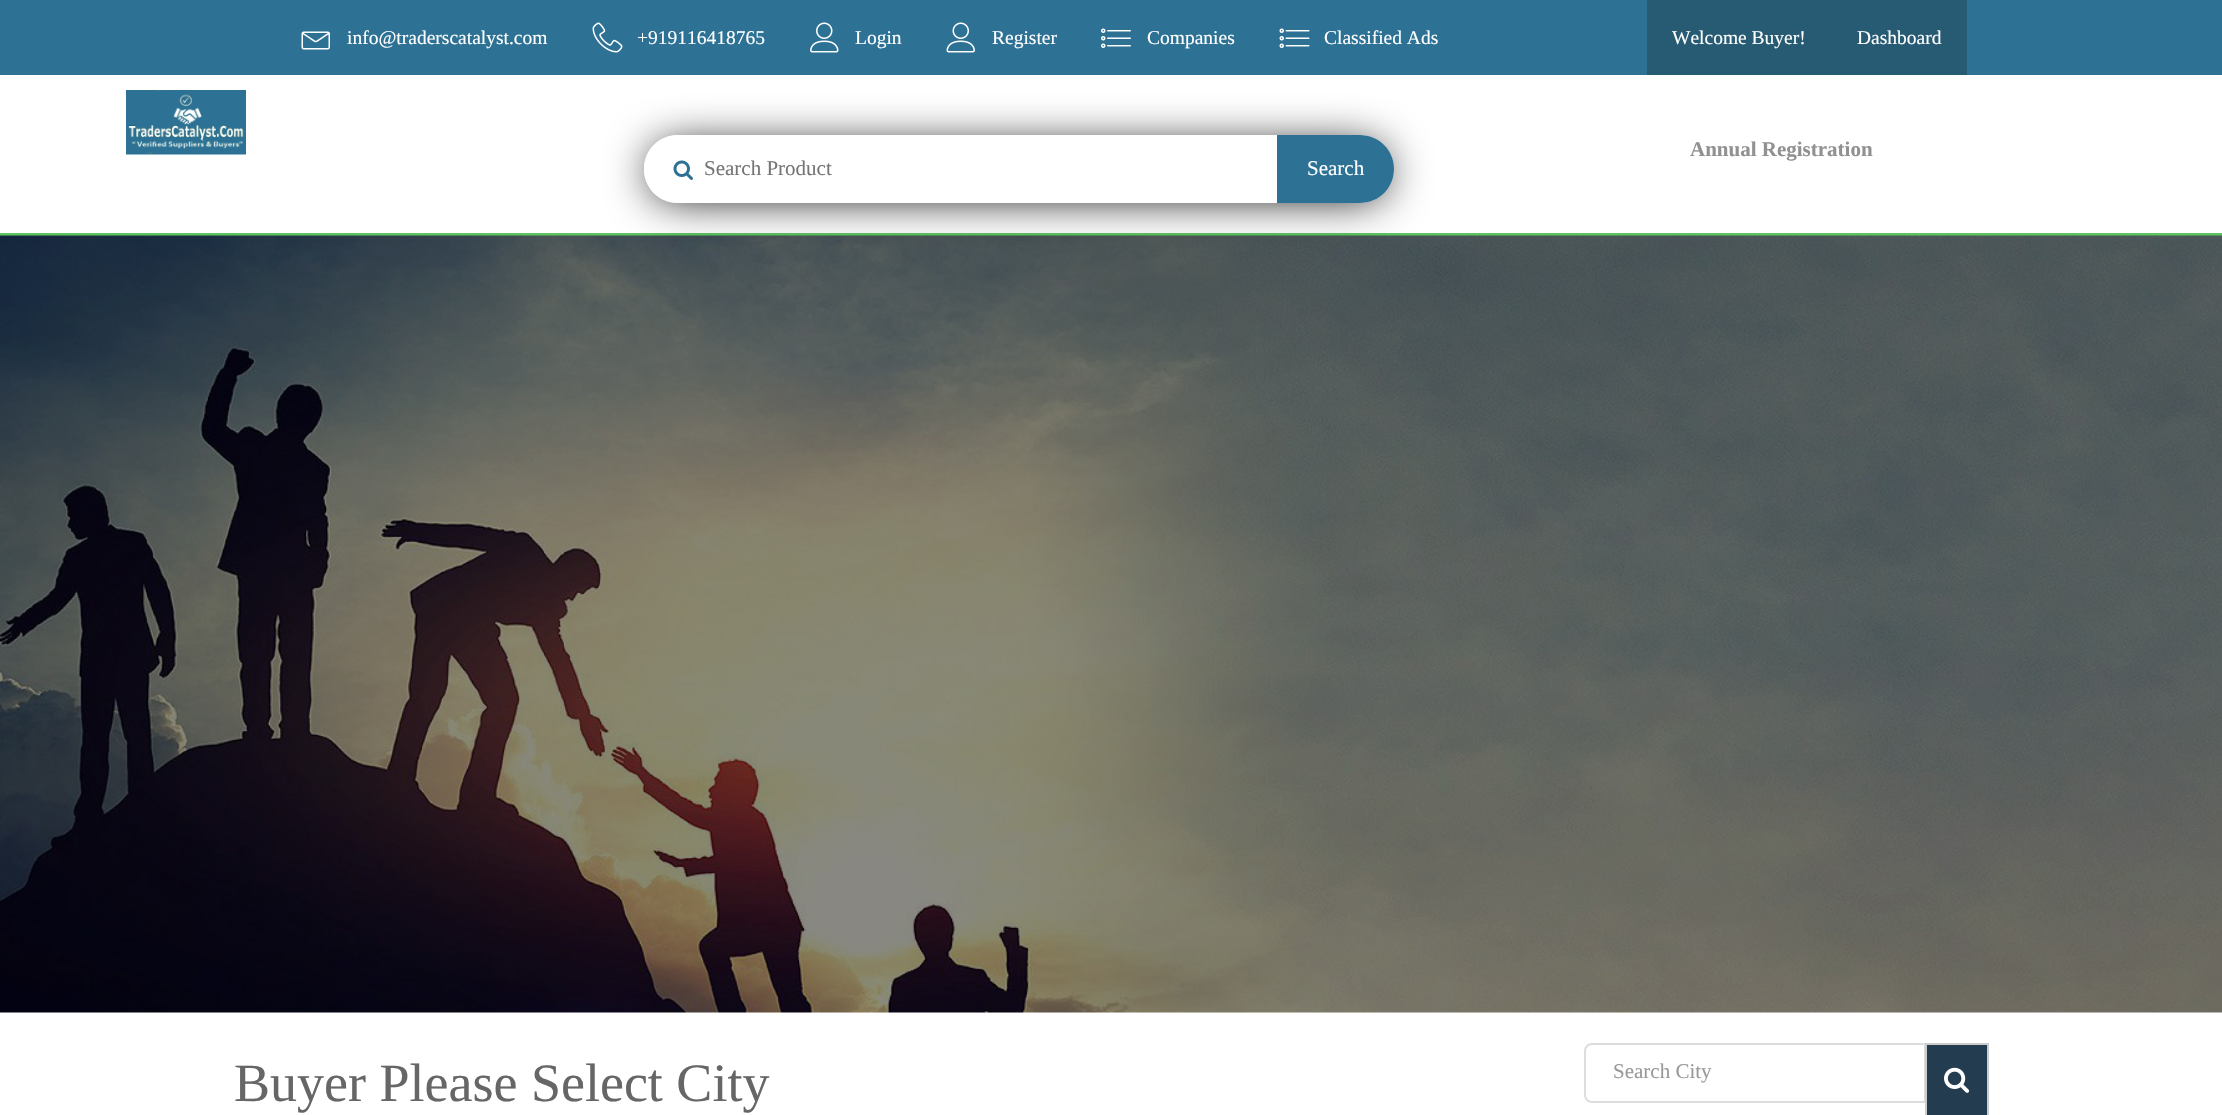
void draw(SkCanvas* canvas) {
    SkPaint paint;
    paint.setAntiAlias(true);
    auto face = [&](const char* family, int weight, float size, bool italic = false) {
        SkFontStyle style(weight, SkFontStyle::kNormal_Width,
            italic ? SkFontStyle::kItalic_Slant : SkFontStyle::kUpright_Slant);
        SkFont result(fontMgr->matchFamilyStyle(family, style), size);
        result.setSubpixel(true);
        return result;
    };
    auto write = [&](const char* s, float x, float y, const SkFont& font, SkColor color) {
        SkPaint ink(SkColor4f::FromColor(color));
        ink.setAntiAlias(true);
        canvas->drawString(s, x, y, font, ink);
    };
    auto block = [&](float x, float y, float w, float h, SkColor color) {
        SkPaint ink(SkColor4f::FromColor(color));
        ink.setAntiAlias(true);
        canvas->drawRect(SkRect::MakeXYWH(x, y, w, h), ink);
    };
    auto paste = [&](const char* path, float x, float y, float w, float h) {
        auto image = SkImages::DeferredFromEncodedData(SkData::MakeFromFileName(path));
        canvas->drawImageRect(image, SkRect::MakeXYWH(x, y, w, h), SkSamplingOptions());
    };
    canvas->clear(SK_ColorWHITE);
    block(0, 233, 2222, 3, SkColorSetRGB(93, 197, 96));
    block(0, 0, 2222, 75, SkColorSetRGB(45, 114, 149));
    paste("pic1.png", 301, 31, 29, 19);
    auto kFont1 = face("Liberation Serif", 400, 19.5f);
    write("info@traderscatalyst.com", 347, 44, kFont1, SK_ColorWHITE);
    paste("pic2.png", 592, 22, 31, 31);
    write("+919116418765", 637, 44, kFont1, SK_ColorWHITE);
    paste("pic3.png", 810, 22, 29, 31);
    write("Login", 855, 44, kFont1, SK_ColorWHITE);
    paste("pic4.png", 946, 22, 29, 31);
    write("Register", 992, 44, kFont1, SK_ColorWHITE);
    paste("pic5.png", 1101, 28, 30, 20);
    write("Companies", 1147, 44, kFont1, SK_ColorWHITE);
    paste("pic6.png", 1279, 28, 31, 20);
    write("Classified Ads", 1324, 44, kFont1, SK_ColorWHITE);
    block(1647, 0, 320, 75, SkColorSetRGB(38, 91, 115));
    write("Welcome Buyer!", 1672, 44, kFont1, SK_ColorWHITE);
    write("Dashboard", 1857, 44, kFont1, SK_ColorWHITE);
    paste("pic7.png", 126, 90, 120, 65);
    auto kFont2 = face("Liberation Serif", 700, 21);
    write("Annual Registration", 1690, 156, kFont2, SkColorSetRGB(145, 145, 145));
    paste("pic9.png", 0, 235, 2222, 778);
    canvas->save();
    canvas->clipPath(SkPathBuilder(SkPathFillType::kEvenOdd).moveTo(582, 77).lineTo(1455, 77).lineTo(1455, 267).lineTo(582, 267).close().moveTo(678, 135).lineTo(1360, 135).cubicTo(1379, 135, 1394, 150, 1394, 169).cubicTo(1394, 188, 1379, 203, 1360, 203).lineTo(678, 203).cubicTo(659, 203, 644, 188, 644, 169).cubicTo(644, 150, 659, 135, 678, 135).close().detach(), true);
    paint.setColor(SK_ColorBLACK);
    paint.setMaskFilter(SkMaskFilter::MakeBlur(kNormal_SkBlurStyle, 22.5f));
    canvas->drawRoundRect(SkRect::MakeXYWH(651, 146, 735, 52), 26, 26, paint);
    paint.setMaskFilter(nullptr);
    canvas->restore();
    paint.setColor(SK_ColorWHITE);
    canvas->drawPath(SkPathBuilder().moveTo(678, 135).lineTo(1269, 135).cubicTo(1273.5f, 135, 1277, 138.5f, 1277, 143).lineTo(1277, 195).cubicTo(1277, 199.5f, 1273.5f, 203, 1269, 203).lineTo(678, 203).cubicTo(659, 203, 644, 188, 644, 169).cubicTo(644, 150, 659, 135, 678, 135).close().detach(), paint);
    paste("pic8.png", 673, 160, 20, 20);
    auto kFont3 = face("Liberation Serif", 400, 21);
    write("Search Product", 704, 175, kFont3, SkColorSetRGB(117, 117, 117));
    paint.setColor(SkColorSetRGB(45, 114, 149));
    canvas->drawPath(SkPathBuilder().moveTo(1277, 135).lineTo(1360, 135).cubicTo(1379, 135, 1394, 150, 1394, 169).cubicTo(1394, 188, 1379, 203, 1360, 203).lineTo(1277, 203).close().detach(), paint);
    write("Search", 1307, 175, kFont3, SK_ColorWHITE);
    auto kFont4 = face("Liberation Serif", 400, 54);
    write("Buyer Please Select City", 234, 1101, kFont4, SkColorSetRGB(103, 102, 102));
    paint.setStyle(SkPaint::kStroke_Style);
    paint.setStrokeWidth(2);
    paint.setColor(SkColorSetRGB(221, 221, 221));
    canvas->drawPath(SkPathBuilder().moveTo(1592, 1044).lineTo(1925, 1044).lineTo(1925, 1102).lineTo(1592, 1102).cubicTo(1588, 1102, 1585, 1099, 1585, 1095).lineTo(1585, 1051).cubicTo(1585, 1047, 1588, 1044, 1592, 1044).close().detach(), paint);
    write("Search City", 1613, 1078, kFont3, SkColorSetRGB(153, 153, 153));
    paint.setStyle(SkPaint::kFill_Style);
    paint.setColor(SkColorSetRGB(36, 60, 79));
    canvas->drawRect(SkRect::MakeXYWH(1926, 1044, 62, 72), paint);
    paint.setStyle(SkPaint::kStroke_Style);
    paint.setColor(SkColorSetRGB(204, 204, 204));
    canvas->drawRect(SkRect::MakeXYWH(1926, 1044, 62, 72), paint);
    paste("pic10.png", 1944, 1067, 25, 26);
}
